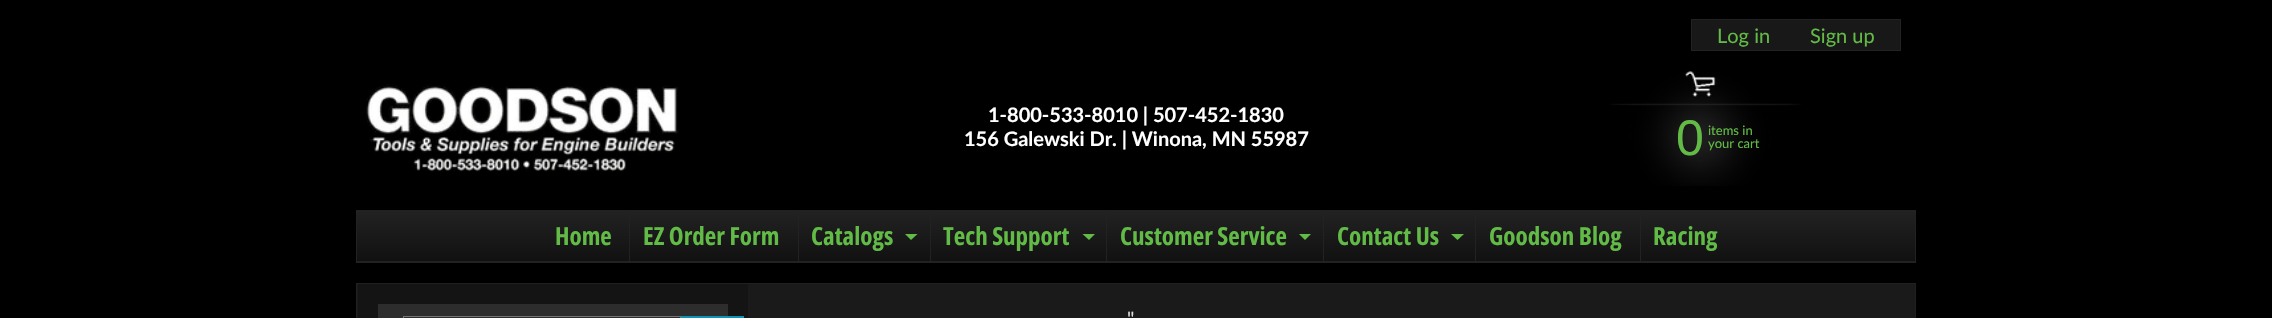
void draw(SkCanvas* canvas) {
    SkPaint paint;
    paint.setAntiAlias(true);
    auto face = [&](const char* family, int weight, float size, bool italic = false) {
        SkFontStyle style(weight, SkFontStyle::kNormal_Width,
            italic ? SkFontStyle::kItalic_Slant : SkFontStyle::kUpright_Slant);
        SkFont result(fontMgr->matchFamilyStyle(family, style), size);
        result.setSubpixel(true);
        return result;
    };
    auto write = [&](const char* s, float x, float y, const SkFont& font, SkColor color) {
        SkPaint ink(SkColor4f::FromColor(color));
        ink.setAntiAlias(true);
        canvas->drawString(s, x, y, font, ink);
    };
    auto block = [&](float x, float y, float w, float h, SkColor color) {
        SkPaint ink(SkColor4f::FromColor(color));
        ink.setAntiAlias(true);
        canvas->drawRect(SkRect::MakeXYWH(x, y, w, h), ink);
    };
    auto paste = [&](const char* path, float x, float y, float w, float h) {
        auto image = SkImages::DeferredFromEncodedData(SkData::MakeFromFileName(path));
        canvas->drawImageRect(image, SkRect::MakeXYWH(x, y, w, h), SkSamplingOptions());
    };
    canvas->clear(SK_ColorBLACK);
    paste("pic1.png", 366, 84, 313, 88);
    auto kFont1 = face("Lato", 700, 20);
    write("1-800-533-8010 | 507-452-1830", 988, 122, kFont1, SK_ColorWHITE);
    write("156 Galewski Dr. | Winona, MN 55987", 964, 146, kFont1, SK_ColorWHITE);
    paint.setColor(SkColorSetRGB(24, 24, 24));
    canvas->drawRect(SkRect::MakeXYWH(1691.5f, 19.5f, 209, 31), paint);
    paint.setStyle(SkPaint::kStroke_Style);
    paint.setStrokeWidth(1);
    paint.setColor(SkColorSetRGB(34, 34, 34));
    canvas->drawRect(SkRect::MakeXYWH(1691.5f, 19.5f, 209, 31), paint);
    auto kFont2 = face("Lato", 400, 20);
    write("Log in", 1717, 43, kFont2, SkColorSetRGB(98, 187, 70));
    write("Sign up", 1810, 43, kFont2, SkColorSetRGB(98, 187, 70));
    paste("pic2.png", 1610, 71, 191, 115);
    auto kFont3 = face("Liberation Sans", 400, 50);
    write("0", 1676, 155, kFont3, SkColorSetRGB(98, 187, 70));
    auto kFont4 = face("Lato", 400, 13);
    write("items in", 1708, 135, kFont4, SkColorSetRGB(98, 187, 70));
    write("your cart", 1708, 148, kFont4, SkColorSetRGB(98, 187, 70));
    block(357, 261, 1558, 1, SkColorSetRGB(34, 34, 34));
    paint.setStyle(SkPaint::kFill_Style);
    {
        const SkColor colors[] = {SkColorSetRGB(34, 34, 34), SkColorSetRGB(17, 17, 17)};
        const float stops[] = {0, 1};
        const SkPoint ends[] = {{1136, 211}, {1136, 261}};
        paint.setShader(SkGradientShader::MakeLinear(ends, colors, stops, 2, SkTileMode::kClamp));
        paint.setAlpha(255);
    }
    canvas->drawRect(SkRect::MakeXYWH(357, 211, 1558, 50), paint);
    paint.setStyle(SkPaint::kStroke_Style);
    paint.setShader(nullptr);
    paint.setColor(SkColorSetRGB(34, 34, 34));
    canvas->drawRect(SkRect::MakeXYWH(356.5f, 210.5f, 1559, 52), paint);
    auto kFont5 = face("Open Sans Condensed", 700, 25);
    write("Home", 555, 245, kFont5, SkColorSetRGB(98, 187, 70));
    block(629, 211, 1, 50, SkColorSetRGB(34, 34, 34));
    write("EZ Order Form", 643, 245, kFont5, SkColorSetRGB(98, 187, 70));
    block(798, 211, 1, 50, SkColorSetRGB(34, 34, 34));
    write("Catalogs", 811, 245, kFont5, SkColorSetRGB(98, 187, 70));
    paint.setStyle(SkPaint::kFill_Style);
    paint.setColor(SkColorSetRGB(98, 187, 70));
    canvas->drawPath(SkPathBuilder().moveTo(905, 234).lineTo(917.5f, 234).lineTo(911, 240).close().detach(), paint);
    block(930, 211, 1, 50, SkColorSetRGB(34, 34, 34));
    write("Tech Support", 943, 245, kFont5, SkColorSetRGB(98, 187, 70));
    canvas->drawPath(SkPathBuilder().moveTo(1082.5f, 234).lineTo(1095, 234).lineTo(1089, 240).close().detach(), paint);
    block(1106, 211, 1, 50, SkColorSetRGB(34, 34, 34));
    write("Customer Service", 1120, 245, kFont5, SkColorSetRGB(98, 187, 70));
    canvas->drawPath(SkPathBuilder().moveTo(1299, 234).lineTo(1311, 234).lineTo(1305, 240).close().detach(), paint);
    block(1323, 211, 1, 50, SkColorSetRGB(34, 34, 34));
    write("Contact Us", 1337, 245, kFont5, SkColorSetRGB(98, 187, 70));
    canvas->drawPath(SkPathBuilder().moveTo(1451, 234).lineTo(1464, 234).lineTo(1457.5f, 240).close().detach(), paint);
    block(1475, 211, 1, 50, SkColorSetRGB(34, 34, 34));
    write("Goodson Blog", 1489, 245, kFont5, SkColorSetRGB(98, 187, 70));
    block(1640, 211, 1, 50, SkColorSetRGB(34, 34, 34));
    write("Racing", 1653, 245, kFont5, SkColorSetRGB(98, 187, 70));
    paint.setColor(SkColorSetRGB(26, 26, 26));
    canvas->drawRect(SkRect::MakeXYWH(356.5f, 283.5f, 1559, 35), paint);
    paint.setStyle(SkPaint::kStroke_Style);
    paint.setColor(SkColorSetRGB(32, 32, 32));
    canvas->drawRect(SkRect::MakeXYWH(356.5f, 283.5f, 1559, 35), paint);
    block(358, 284, 390, 34, SkColorSetRGB(20, 20, 20));
    block(378, 304, 350, 14, SkColorSetRGB(45, 45, 45));
    paint.setColor(SkColorSetRGB(118, 118, 118));
    canvas->drawRect(SkRect::MakeXYWH(403.5f, 316.5f, 277, 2), paint);
    block(681, 316, 63, 2, SkColorSetRGB(13, 146, 186));
    write("\"", 1127, 326, kFont2, SkColorSetRGB(221, 221, 221));
}
